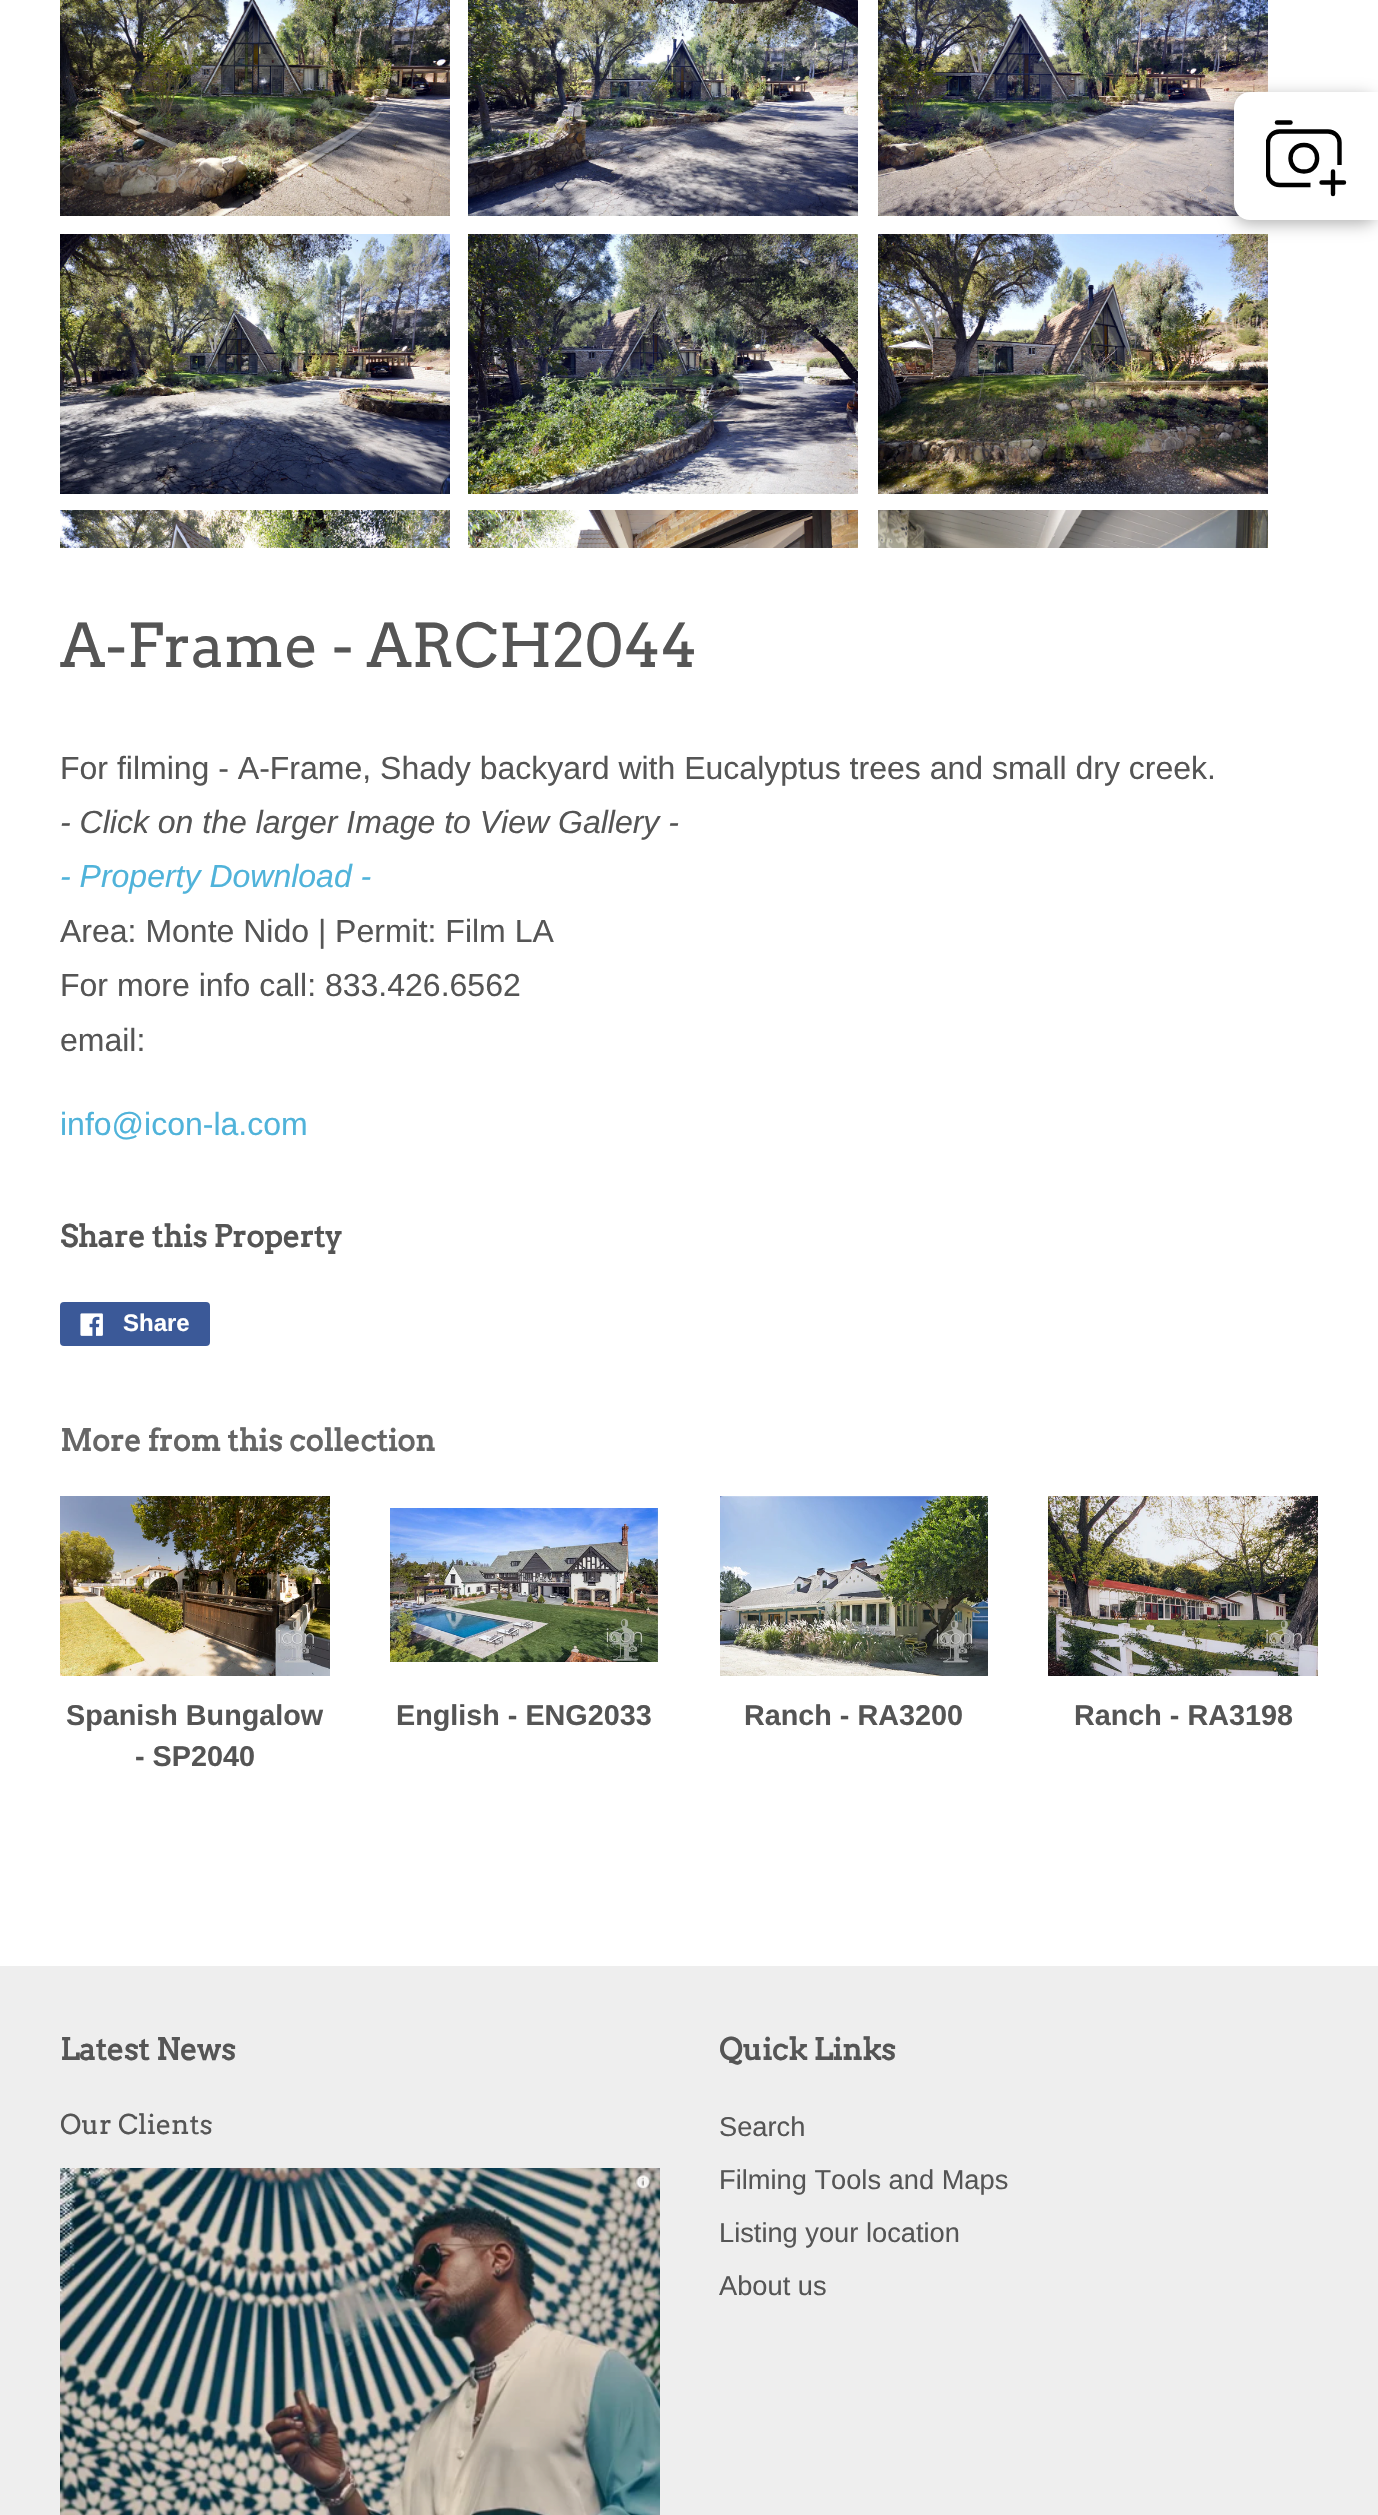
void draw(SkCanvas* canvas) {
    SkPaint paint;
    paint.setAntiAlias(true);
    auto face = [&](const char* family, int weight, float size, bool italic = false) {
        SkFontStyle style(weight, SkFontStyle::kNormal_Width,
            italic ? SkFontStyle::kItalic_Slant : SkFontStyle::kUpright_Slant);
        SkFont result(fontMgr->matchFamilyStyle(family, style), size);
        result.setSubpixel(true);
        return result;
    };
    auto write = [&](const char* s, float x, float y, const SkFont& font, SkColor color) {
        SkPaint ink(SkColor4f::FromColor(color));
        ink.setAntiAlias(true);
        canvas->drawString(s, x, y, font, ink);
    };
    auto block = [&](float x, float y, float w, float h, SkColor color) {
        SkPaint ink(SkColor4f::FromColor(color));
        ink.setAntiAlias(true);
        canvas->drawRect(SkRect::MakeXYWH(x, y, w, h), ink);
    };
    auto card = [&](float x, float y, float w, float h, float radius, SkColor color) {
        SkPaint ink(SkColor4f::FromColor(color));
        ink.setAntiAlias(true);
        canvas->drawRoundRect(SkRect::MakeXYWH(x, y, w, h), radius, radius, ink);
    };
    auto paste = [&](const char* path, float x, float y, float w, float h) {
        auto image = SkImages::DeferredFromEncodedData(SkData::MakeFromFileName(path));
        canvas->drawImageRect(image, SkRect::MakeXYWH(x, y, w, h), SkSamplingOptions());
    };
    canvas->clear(SK_ColorWHITE);
    paste("pic3.png", 878, 0, 390, 216);
    paste("pic6.png", 878, 234, 390, 260);
    paint.setColor(SkColorSetARGB(77, 0, 0, 0));
    paint.setMaskFilter(SkMaskFilter::MakeBlur(kNormal_SkBlurStyle, 8));
    canvas->drawRoundRect(SkRect::MakeXYWH(1234, 96, 144, 128), 16, 16, paint);
    paint.setMaskFilter(nullptr);
    paint.setColor(SK_ColorWHITE);
    canvas->drawPath(SkPathBuilder().moveTo(1250, 92).lineTo(1378, 92).lineTo(1378, 220).lineTo(1250, 220).cubicTo(1241, 220, 1234, 213, 1234, 204).lineTo(1234, 108).cubicTo(1234, 99, 1241, 92, 1250, 92).close().detach(), paint);
    paint.setStyle(SkPaint::kStroke_Style);
    paint.setStrokeWidth(4.4f);
    paint.setStrokeCap(SkPaint::kRound_Cap);
    paint.setColor(SK_ColorBLACK);
    canvas->drawPath(SkPathBuilder().moveTo(1321.5f, 182.5f).lineTo(1344, 182.5f).moveTo(1333, 171.5f).lineTo(1333, 194).detach(), paint);
    paint.setStrokeCap(SkPaint::kButt_Cap);
    canvas->drawPath(SkPathBuilder().moveTo(1304, 171.5f).cubicTo(1321.5f, 171.5f, 1321.5f, 145, 1304, 145).cubicTo(1286, 145, 1286, 171.5f, 1304, 171.5f).close().detach(), paint);
    paint.setStrokeCap(SkPaint::kRound_Cap);
    canvas->drawPath(SkPathBuilder().moveTo(1277, 122.5f).lineTo(1290.5f, 122.5f).detach(), paint);
    canvas->save();
    canvas->clipRect(SkRect::MakeXYWH(1266, 116, 80, 80));
    paint.setStrokeCap(SkPaint::kButt_Cap);
    canvas->drawPath(SkPathBuilder().moveTo(1310.5f, 185).lineTo(1279.5f, 185).cubicTo(1273, 185, 1268, 180, 1268, 174).lineTo(1268, 142.5f).cubicTo(1268, 136.5f, 1273, 131.5f, 1279.5f, 131.5f).lineTo(1328, 131.5f).cubicTo(1334.5f, 131.5f, 1339.5f, 136.5f, 1339.5f, 142.5f).lineTo(1339.5f, 165).detach(), paint);
    canvas->restore();
    paste("pic1.png", 60, 0, 390, 216);
    paste("pic2.png", 468, 0, 390, 216);
    paste("pic4.png", 60, 234, 390, 260);
    paste("pic5.png", 468, 234, 390, 260);
    paste("pic7.png", 60, 510, 390, 38);
    paste("pic8.png", 468, 510, 390, 38);
    paste("pic9.png", 878, 510, 390, 38);
    auto kFont1 = face("Arvo", 400, 60);
    write("A-Frame - ARCH2044", 60, 667, kFont1, SkColorSetRGB(85, 85, 85));
    auto kFont2 = face("Liberation Sans", 400, 32);
    write("For filming - A-Frame, Shady backyard with Eucalyptus trees and small dry creek.", 60, 779, kFont2, SkColorSetRGB(85, 85, 85));
    auto kFont3 = face("Liberation Sans", 400, 32, true);
    write("- Click on the larger Image to View Gallery -", 60, 833, kFont3, SkColorSetRGB(85, 85, 85));
    write("- Property Download -", 60, 887, kFont3, SkColorSetRGB(80, 179, 218));
    write("Area: Monte Nido | Permit: Film LA", 60, 942, kFont2, SkColorSetRGB(85, 85, 85));
    write("For more info call: 833.426.6562", 60, 996, kFont2, SkColorSetRGB(85, 85, 85));
    write("email:", 60, 1051, kFont2, SkColorSetRGB(85, 85, 85));
    write("info@icon-la.com", 60, 1135, kFont2, SkColorSetRGB(80, 179, 218));
    auto kFont4 = face("Arvo", 700, 30);
    write("Share this Property", 60, 1247, kFont4, SkColorSetRGB(85, 85, 85));
    card(60, 1302, 150, 44, 4, SkColorSetRGB(59, 89, 152));
    paste("pic10.png", 80, 1313, 23, 23);
    auto kFont5 = face("Liberation Sans", 700, 24);
    write("Share", 123, 1331, kFont5, SK_ColorWHITE);
    write("More from this collection", 60, 1451, kFont4, SkColorSetRGB(102, 102, 102));
    paste("pic11.png", 60, 1496, 270, 180);
    auto kFont6 = face("Liberation Sans", 700, 28.75f);
    write("Spanish Bungalow", 66, 1725, kFont6, SkColorSetRGB(85, 85, 85));
    write("- SP2040", 135, 1766, kFont6, SkColorSetRGB(85, 85, 85));
    paste("pic12.png", 390, 1508, 268, 154);
    write("English - ENG2033", 396, 1725, kFont6, SkColorSetRGB(85, 85, 85));
    paste("pic13.png", 720, 1496, 268, 180);
    write("Ranch - RA3200", 744, 1725, kFont6, SkColorSetRGB(85, 85, 85));
    paste("pic14.png", 1048, 1496, 270, 180);
    write("Ranch - RA3198", 1074, 1725, kFont6, SkColorSetRGB(85, 85, 85));
    block(0, 1966, 1378, 549, SkColorSetRGB(238, 238, 238));
    write("Latest News", 60, 2060, kFont4, SkColorSetRGB(85, 85, 85));
    auto kFont7 = face("Arvo", 400, 27.25f);
    write("Our Clients", 60, 2134, kFont7, SkColorSetRGB(85, 85, 85));
    paste("pic15.png", 60, 2168, 600, 347);
    write("Quick Links", 719, 2060, kFont4, SkColorSetRGB(85, 85, 85));
    auto kFont8 = face("Liberation Sans", 400, 27.25f);
    write("Search", 719, 2136, kFont8, SkColorSetRGB(85, 85, 85));
    write("Filming Tools and Maps", 719, 2189, kFont8, SkColorSetRGB(85, 85, 85));
    write("Listing your location", 719, 2242, kFont8, SkColorSetRGB(85, 85, 85));
    write("About us", 719, 2295, kFont8, SkColorSetRGB(85, 85, 85));
}
